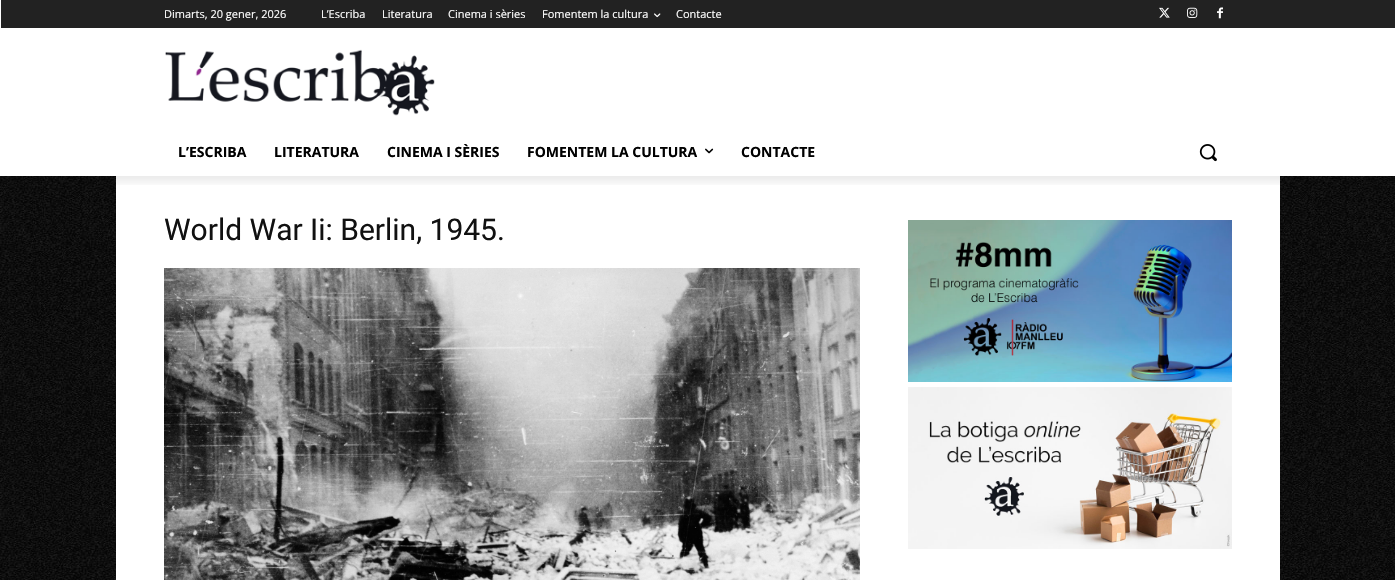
void draw(SkCanvas* canvas) {
    SkPaint paint;
    paint.setAntiAlias(true);
    auto face = [&](const char* family, int weight, float size, bool italic = false) {
        SkFontStyle style(weight, SkFontStyle::kNormal_Width,
            italic ? SkFontStyle::kItalic_Slant : SkFontStyle::kUpright_Slant);
        SkFont result(fontMgr->matchFamilyStyle(family, style), size);
        result.setSubpixel(true);
        return result;
    };
    auto write = [&](const char* s, float x, float y, const SkFont& font, SkColor color) {
        SkPaint ink(SkColor4f::FromColor(color));
        ink.setAntiAlias(true);
        canvas->drawString(s, x, y, font, ink);
    };
    auto block = [&](float x, float y, float w, float h, SkColor color) {
        SkPaint ink(SkColor4f::FromColor(color));
        ink.setAntiAlias(true);
        canvas->drawRect(SkRect::MakeXYWH(x, y, w, h), ink);
    };
    auto paste = [&](const char* path, float x, float y, float w, float h) {
        auto image = SkImages::DeferredFromEncodedData(SkData::MakeFromFileName(path));
        canvas->drawImageRect(image, SkRect::MakeXYWH(x, y, w, h), SkSamplingOptions());
    };
    canvas->clear(SK_ColorWHITE);
    paste("pic1.png", 0, 176, 1395, 404);
    block(1, 0, 1394, 28, SkColorSetRGB(34, 34, 34));
    paste("pic3.png", 1159, 7, 11, 11);
    paste("pic4.png", 1187, 7, 11, 11);
    paste("pic5.png", 1217, 7, 6, 12);
    paste("pic6.png", 165, 49, 270, 67);
    block(116, 176, 1164, 404, SK_ColorWHITE);
    canvas->save();
    canvas->clipRect(SkRect::MakeXYWH(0, 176, 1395, 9));
    paint.setColor(SkColorSetARGB(20, 0, 0, 0));
    paint.setMaskFilter(SkMaskFilter::MakeBlur(kNormal_SkBlurStyle, 4));
    canvas->drawRect(SkRect::MakeXYWH(1, 6, 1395, 176), paint);
    paint.setMaskFilter(nullptr);
    canvas->restore();
    auto kFont1 = face("Open Sans", 400, 11);
    write("Dimarts, 20 gener, 2026", 164, 18, kFont1, SK_ColorWHITE);
    write("L’Escriba", 321, 18, kFont1, SK_ColorWHITE);
    write("Literatura", 382, 18, kFont1, SK_ColorWHITE);
    write("Cinema i sèries", 448, 18, kFont1, SK_ColorWHITE);
    write("Fomentem la cultura", 542, 18, kFont1, SK_ColorWHITE);
    paste("pic2.png", 654, 13, 7, 5);
    write("Contacte", 676, 18, kFont1, SK_ColorWHITE);
    auto kFont2 = face("Open Sans", 700, 14);
    write("L’ESCRIBA", 178, 157, kFont2, SK_ColorBLACK);
    write("LITERATURA", 274, 157, kFont2, SK_ColorBLACK);
    write("CINEMA I SÈRIES", 387, 157, kFont2, SK_ColorBLACK);
    write("FOMENTEM LA CULTURA", 527, 157, kFont2, SK_ColorBLACK);
    paste("pic7.png", 705, 148, 9, 6);
    write("CONTACTE", 741, 157, kFont2, SK_ColorBLACK);
    paste("pic8.png", 1199, 144, 18, 18);
    auto kFont3 = face("Roboto", 400, 30);
    write("World War Ii: Berlin, 1945.", 164, 240, kFont3, SkColorSetRGB(17, 17, 17));
    paste("pic9.png", 164, 268, 696, 312);
    paste("pic10.png", 908, 220, 324, 162);
    paste("pic11.png", 908, 387, 324, 162);
}
